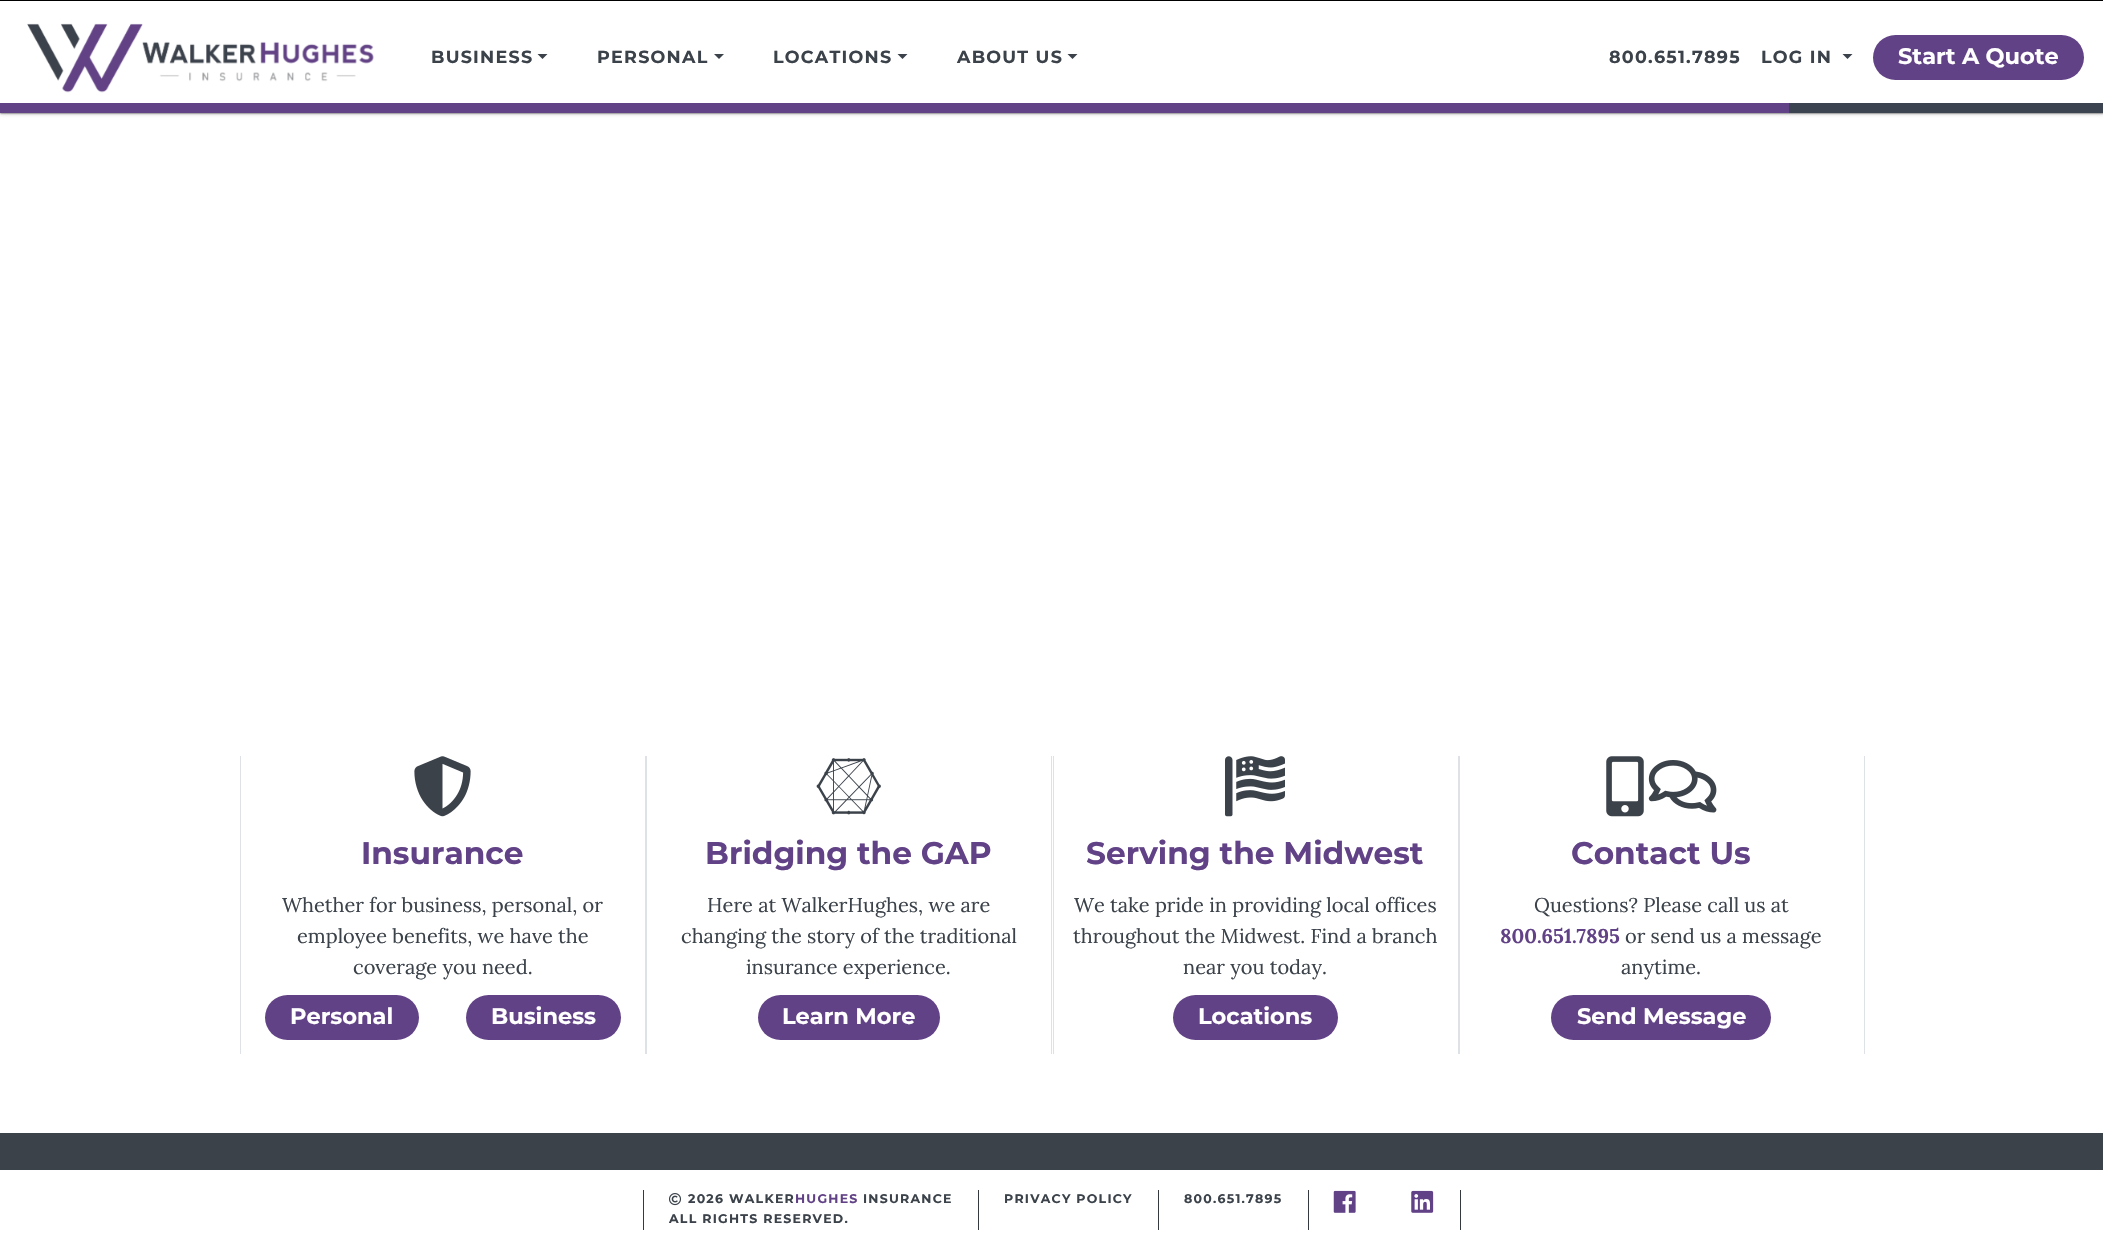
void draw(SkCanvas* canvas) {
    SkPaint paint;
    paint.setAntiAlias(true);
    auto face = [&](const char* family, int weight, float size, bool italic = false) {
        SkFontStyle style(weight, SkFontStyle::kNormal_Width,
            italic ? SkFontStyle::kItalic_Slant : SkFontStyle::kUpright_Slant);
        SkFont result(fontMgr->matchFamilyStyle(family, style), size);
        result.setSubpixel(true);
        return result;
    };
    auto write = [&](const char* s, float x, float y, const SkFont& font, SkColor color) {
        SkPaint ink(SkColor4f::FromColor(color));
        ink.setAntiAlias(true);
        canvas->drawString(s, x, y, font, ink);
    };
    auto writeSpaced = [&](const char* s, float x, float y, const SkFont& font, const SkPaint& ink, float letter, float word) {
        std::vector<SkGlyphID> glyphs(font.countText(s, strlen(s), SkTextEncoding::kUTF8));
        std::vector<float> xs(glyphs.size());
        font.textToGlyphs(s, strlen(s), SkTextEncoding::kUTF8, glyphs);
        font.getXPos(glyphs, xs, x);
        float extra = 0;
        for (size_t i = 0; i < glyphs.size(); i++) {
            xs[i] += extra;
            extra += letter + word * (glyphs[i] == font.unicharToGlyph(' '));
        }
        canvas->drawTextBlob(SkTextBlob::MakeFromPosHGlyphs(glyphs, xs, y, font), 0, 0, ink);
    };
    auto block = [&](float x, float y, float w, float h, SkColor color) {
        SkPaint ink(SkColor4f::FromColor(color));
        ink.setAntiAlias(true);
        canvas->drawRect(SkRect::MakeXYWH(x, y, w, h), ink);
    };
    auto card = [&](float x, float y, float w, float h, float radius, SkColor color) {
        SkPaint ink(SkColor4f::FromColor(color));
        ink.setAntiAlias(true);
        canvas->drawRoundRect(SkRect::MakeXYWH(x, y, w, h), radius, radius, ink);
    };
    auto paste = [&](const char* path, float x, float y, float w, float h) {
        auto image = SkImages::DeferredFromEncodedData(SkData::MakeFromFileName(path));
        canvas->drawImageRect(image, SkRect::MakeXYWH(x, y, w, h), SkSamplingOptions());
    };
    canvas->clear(SK_ColorWHITE);
    paint.setColor(SkColorSetARGB(31, 0, 0, 0));
    paint.setMaskFilter(SkMaskFilter::MakeBlur(kNormal_SkBlurStyle, 0.5f));
    canvas->drawRect(SkRect::MakeXYWH(1, 4, 2102, 110), paint);
    paint.setMaskFilter(nullptr);
    paint.setColor(SkColorSetARGB(36, 0, 0, 0));
    paint.setMaskFilter(SkMaskFilter::MakeBlur(kNormal_SkBlurStyle, 0.5f));
    canvas->drawRect(SkRect::MakeXYWH(0, 1, 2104, 113), paint);
    paint.setMaskFilter(nullptr);
    paint.setColor(SkColorSetARGB(51, 0, 0, 0));
    paint.setMaskFilter(SkMaskFilter::MakeBlur(kNormal_SkBlurStyle, 2));
    canvas->drawRect(SkRect::MakeXYWH(0, 1, 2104, 113), paint);
    paint.setMaskFilter(nullptr);
    block(0, 1, 2103, 102, SK_ColorWHITE);
    block(0, 0, 2103, 1, SK_ColorBLACK);
    paste("pic1.png", 27, 23, 347, 70);
    auto kFont1 = face("Montserrat", 700, 17.5f);
    paint.setColor(SkColorSetRGB(59, 66, 74));
    writeSpaced("BUSINESS", 431, 63, kFont1, paint, 1.25f, 0);
    canvas->drawPath(SkPathBuilder().moveTo(537.5f, 54).lineTo(547.5f, 54).lineTo(542.5f, 59).close().detach(), paint);
    writeSpaced("PERSONAL", 597, 63, kFont1, paint, 1.25f, 0);
    canvas->drawPath(SkPathBuilder().moveTo(714, 54).lineTo(724, 54).lineTo(719, 59).close().detach(), paint);
    writeSpaced("LOCATIONS", 773, 63, kFont1, paint, 1.25f, 0);
    canvas->drawPath(SkPathBuilder().moveTo(897.5f, 54).lineTo(907.5f, 54).lineTo(902.5f, 59).close().detach(), paint);
    writeSpaced("ABOUT US", 957, 63, kFont1, paint, 1.25f, 0);
    canvas->drawPath(SkPathBuilder().moveTo(1067.5f, 54).lineTo(1077.5f, 54).lineTo(1072.5f, 59).close().detach(), paint);
    writeSpaced("800.651.7895", 1609, 63, kFont1, paint, 1.25f, 0);
    writeSpaced("LOG IN", 1761, 63, kFont1, paint, 1.25f, 0);
    canvas->drawPath(SkPathBuilder().moveTo(1842.5f, 54).lineTo(1852.5f, 54).lineTo(1847.5f, 59).close().detach(), paint);
    card(1873, 35, 211, 45, 22.5f, SkColorSetRGB(98, 66, 134));
    auto kFont2 = face("Montserrat", 700, 22.5f);
    write("Start A Quote", 1898, 64, kFont2, SK_ColorWHITE);
    block(0, 103, 1789, 10, SkColorSetRGB(98, 66, 134));
    block(1789, 103, 314, 10, SkColorSetRGB(59, 66, 80));
    block(645, 756, 2, 298, SkColorSetRGB(222, 226, 230));
    block(240, 756, 1, 298, SkColorSetRGB(222, 226, 230));
    paste("pic2.png", 414, 756, 57, 61);
    auto kFont3 = face("Montserrat", 700, 31.25f);
    write("Insurance", 361, 864, kFont3, SkColorSetRGB(98, 66, 134));
    auto kFont4 = face("Lora", 400, 20);
    write("Whether for business, personal, or", 282, 912, kFont4, SkColorSetRGB(59, 66, 74));
    write("employee benefits, we have the", 297, 943, kFont4, SkColorSetRGB(59, 66, 74));
    write("coverage you need.", 353, 974, kFont4, SkColorSetRGB(59, 66, 74));
    card(265, 995, 154, 45, 22.5f, SkColorSetRGB(98, 66, 134));
    write("Personal", 290, 1024, kFont2, SK_ColorWHITE);
    card(466, 995, 155, 45, 22.5f, SkColorSetRGB(98, 66, 134));
    write("Business", 491, 1024, kFont2, SK_ColorWHITE);
    block(1051, 756, 1, 298, SkColorSetRGB(222, 226, 230));
    paste("pic3.png", 816, 758, 65, 57);
    write("Bridging the GAP", 705, 864, kFont3, SkColorSetRGB(98, 66, 134));
    write("Here at WalkerHughes, we are", 707, 912, kFont4, SkColorSetRGB(59, 66, 74));
    write("changing the story of the traditional", 681, 943, kFont4, SkColorSetRGB(59, 66, 74));
    write("insurance experience.", 746, 974, kFont4, SkColorSetRGB(59, 66, 74));
    card(758, 995, 182, 45, 22.5f, SkColorSetRGB(98, 66, 134));
    write("Learn More", 782, 1024, kFont2, SK_ColorWHITE);
    block(1458, 756, 2, 298, SkColorSetRGB(222, 226, 230));
    block(1053, 756, 1, 298, SkColorSetRGB(222, 226, 230));
    paste("pic4.png", 1225, 756, 60, 61);
    write("Serving the Midwest", 1086, 864, kFont3, SkColorSetRGB(98, 66, 134));
    write("We take pride in providing local offices", 1074, 912, kFont4, SkColorSetRGB(59, 66, 74));
    write("throughout the Midwest. Find a branch", 1073, 943, kFont4, SkColorSetRGB(59, 66, 74));
    write("near you today.", 1183, 974, kFont4, SkColorSetRGB(59, 66, 74));
    card(1173, 995, 165, 45, 22.5f, SkColorSetRGB(98, 66, 134));
    write("Locations", 1198, 1024, kFont2, SK_ColorWHITE);
    block(1864, 756, 1, 298, SkColorSetRGB(222, 226, 230));
    paste("pic5.png", 1606, 756, 38, 61);
    paste("pic6.png", 1648, 760, 69, 53);
    write("Contact Us", 1571, 864, kFont3, SkColorSetRGB(98, 66, 134));
    write("Questions? Please call us at", 1534, 912, kFont4, SkColorSetRGB(59, 66, 74));
    auto kFont5 = face("Lora", 700, 20);
    write("800.651.7895", 1500, 943, kFont5, SkColorSetRGB(98, 66, 134));
    write("or send us a message", 1625, 943, kFont4, SkColorSetRGB(59, 66, 74));
    write("anytime.", 1621, 974, kFont4, SkColorSetRGB(59, 66, 74));
    card(1551, 995, 220, 45, 22.5f, SkColorSetRGB(98, 66, 134));
    write("Send Message", 1577, 1024, kFont2, SK_ColorWHITE);
    block(0, 1133, 2103, 37, SkColorSetRGB(59, 66, 74));
    block(643, 1190, 1, 40, SkColorSetRGB(52, 58, 64));
    paste("pic7.png", 669, 1193, 12, 13);
    auto kFont6 = face("Montserrat", 700, 12.5f);
    writeSpaced("2026 WALKER", 688, 1203, kFont6, paint, 1.25f, 0);
    paint.setColor(SkColorSetRGB(98, 66, 134));
    writeSpaced("HUGHES", 795, 1203, kFont6, paint, 1.25f, 0);
    paint.setColor(SkColorSetRGB(59, 66, 74));
    writeSpaced("INSURANCE", 863, 1203, kFont6, paint, 1.25f, 0);
    writeSpaced("ALL RIGHTS RESERVED.", 669, 1223, kFont6, paint, 1.25f, 0);
    block(1158, 1190, 1, 40, SkColorSetRGB(52, 58, 64));
    block(978, 1190, 1, 40, SkColorSetRGB(52, 58, 64));
    writeSpaced("PRIVACY POLICY", 1004, 1203, kFont6, paint, 1.25f, 0);
    block(1308, 1190, 1, 40, SkColorSetRGB(52, 58, 64));
    writeSpaced("800.651.7895", 1184, 1203, kFont6, paint, 1.25f, 0);
    block(1460, 1190, 1, 40, SkColorSetRGB(52, 58, 64));
    paste("pic8.png", 1333, 1190, 23, 23);
    paste("pic9.png", 1411, 1190, 23, 23);
}
